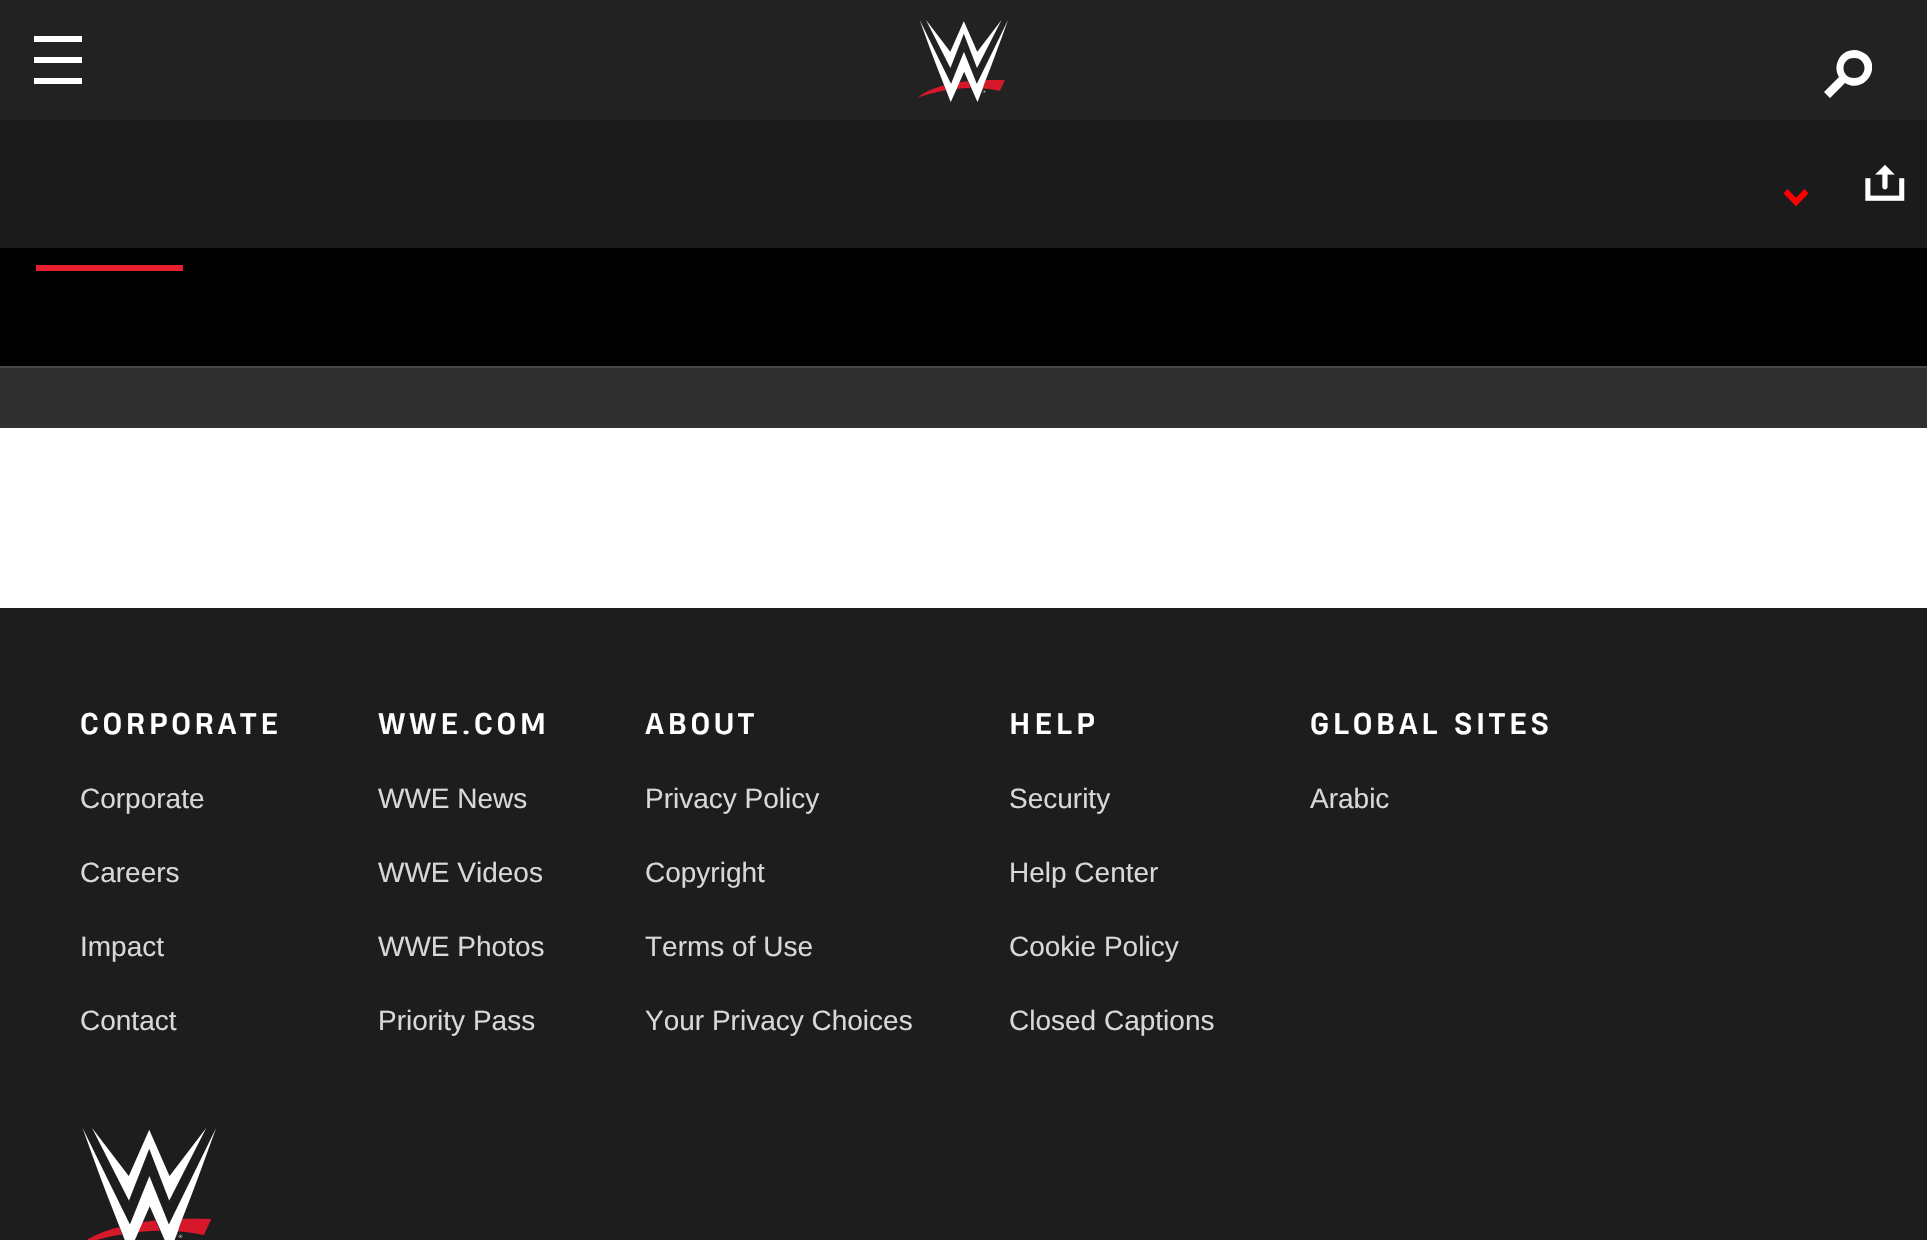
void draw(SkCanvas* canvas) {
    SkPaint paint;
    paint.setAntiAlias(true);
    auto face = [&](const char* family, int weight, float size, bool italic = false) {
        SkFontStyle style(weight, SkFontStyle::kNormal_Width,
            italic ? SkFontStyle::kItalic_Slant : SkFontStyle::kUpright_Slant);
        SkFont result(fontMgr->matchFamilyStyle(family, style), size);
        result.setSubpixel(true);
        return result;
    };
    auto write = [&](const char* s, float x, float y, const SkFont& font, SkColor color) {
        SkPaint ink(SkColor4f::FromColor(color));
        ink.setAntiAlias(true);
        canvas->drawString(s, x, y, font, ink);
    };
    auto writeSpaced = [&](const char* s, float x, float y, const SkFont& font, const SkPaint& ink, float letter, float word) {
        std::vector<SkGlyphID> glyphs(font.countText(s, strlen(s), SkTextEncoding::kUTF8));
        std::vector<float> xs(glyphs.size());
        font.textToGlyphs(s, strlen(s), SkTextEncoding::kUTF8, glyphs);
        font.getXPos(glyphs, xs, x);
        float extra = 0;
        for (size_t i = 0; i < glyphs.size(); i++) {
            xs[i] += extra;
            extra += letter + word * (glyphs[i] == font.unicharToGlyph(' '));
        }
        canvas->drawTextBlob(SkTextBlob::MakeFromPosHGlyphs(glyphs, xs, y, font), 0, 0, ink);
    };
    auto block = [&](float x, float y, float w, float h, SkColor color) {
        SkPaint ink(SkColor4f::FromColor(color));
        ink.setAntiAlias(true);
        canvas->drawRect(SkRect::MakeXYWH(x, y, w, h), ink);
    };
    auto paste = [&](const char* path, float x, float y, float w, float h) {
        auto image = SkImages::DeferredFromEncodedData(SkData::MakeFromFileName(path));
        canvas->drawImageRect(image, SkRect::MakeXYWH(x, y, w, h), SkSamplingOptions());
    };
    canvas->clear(SK_ColorWHITE);
    block(0, 0, 1927, 120, SkColorSetRGB(34, 34, 34));
    paint.setColor(SK_ColorWHITE);
    canvas->drawPath(SkPathBuilder(SkPathFillType::kEvenOdd).moveTo(36, 42).lineTo(34, 42).lineTo(34, 36).lineTo(82, 36).lineTo(82, 42).close().moveTo(36, 63).lineTo(34, 63).lineTo(34, 57).lineTo(82, 57).lineTo(82, 63).close().moveTo(36, 84).lineTo(34, 84).lineTo(34, 78).lineTo(82, 78).lineTo(82, 84).close().detach(), paint);
    paste("pic1.png", 918, 20, 90, 82);
    canvas->save();
    canvas->clipRect(SkRect::MakeXYWH(1824, 50, 48, 48));
    canvas->drawPath(SkPathBuilder(SkPathFillType::kEvenOdd).moveTo(1854, 50).cubicTo(1859, 50, 1863, 52, 1867, 55).cubicTo(1882, 70, 1862, 94, 1845, 83).lineTo(1830, 98).lineTo(1824, 92).lineTo(1839, 77).cubicTo(1832, 66, 1840, 50, 1854, 50).close().moveTo(1854, 58).cubicTo(1840, 58, 1840, 78, 1854, 78).cubicTo(1868, 78, 1868, 58, 1854, 58).close().detach(), paint);
    canvas->restore();
    block(0, 368, 1927, 60, SkColorSetRGB(48, 48, 48));
    block(0, 120, 1927, 128, SkColorSetRGB(27, 27, 27));
    paint.setColor(SkColorSetRGB(255, 0, 0));
    canvas->drawPath(SkPathBuilder().moveTo(1804.5f, 189).lineTo(1808.5f, 193.5f).lineTo(1796, 206).lineTo(1792, 202).close().detach(), paint);
    canvas->drawPath(SkPathBuilder().moveTo(1787.5f, 189).lineTo(1800, 202).lineTo(1796, 206).lineTo(1783.5f, 193.5f).close().detach(), paint);
    paste("pic2.png", 1865, 164, 40, 37);
    block(0, 248, 1927, 118, SK_ColorBLACK);
    block(0, 366, 1927, 2, SkColorSetRGB(71, 71, 71));
    block(36, 265, 147, 6, SkColorSetRGB(231, 32, 47));
    block(0, 608, 1927, 632, SkColorSetRGB(29, 29, 29));
    auto kFont1 = face("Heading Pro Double", 700, 28);
    paint.setColor(SK_ColorWHITE);
    writeSpaced("CORPORATE", 80, 734, kFont1, paint, 3.5f, 0);
    auto kFont2 = face("Liberation Sans", 400, 28);
    write("Corporate", 80, 808, kFont2, SkColorSetRGB(216, 216, 216));
    write("Careers", 80, 882, kFont2, SkColorSetRGB(216, 216, 216));
    write("Impact", 80, 956, kFont2, SkColorSetRGB(216, 216, 216));
    write("Contact", 80, 1030, kFont2, SkColorSetRGB(216, 216, 216));
    writeSpaced("WWE.COM", 378, 734, kFont1, paint, 3.5f, 0);
    write("WWE News", 378, 808, kFont2, SkColorSetRGB(216, 216, 216));
    write("WWE Videos", 378, 882, kFont2, SkColorSetRGB(216, 216, 216));
    write("WWE Photos", 378, 956, kFont2, SkColorSetRGB(216, 216, 216));
    write("Priority Pass", 378, 1030, kFont2, SkColorSetRGB(216, 216, 216));
    writeSpaced("ABOUT", 645, 734, kFont1, paint, 3.5f, 0);
    write("Privacy Policy", 645, 808, kFont2, SkColorSetRGB(216, 216, 216));
    write("Copyright", 645, 882, kFont2, SkColorSetRGB(216, 216, 216));
    write("Terms of Use", 645, 956, kFont2, SkColorSetRGB(216, 216, 216));
    write("Your Privacy Choices", 645, 1030, kFont2, SkColorSetRGB(216, 216, 216));
    writeSpaced("HELP", 1009, 734, kFont1, paint, 3.5f, 0);
    write("Security", 1009, 808, kFont2, SkColorSetRGB(216, 216, 216));
    write("Help Center", 1009, 882, kFont2, SkColorSetRGB(216, 216, 216));
    write("Cookie Policy", 1009, 956, kFont2, SkColorSetRGB(216, 216, 216));
    write("Closed Captions", 1009, 1030, kFont2, SkColorSetRGB(216, 216, 216));
    writeSpaced("GLOBAL SITES", 1310, 734, kFont1, paint, 3.5f, 0);
    write("Arabic", 1310, 808, kFont2, SkColorSetRGB(216, 216, 216));
    paste("pic3.png", 82, 1128, 134, 112);
}
